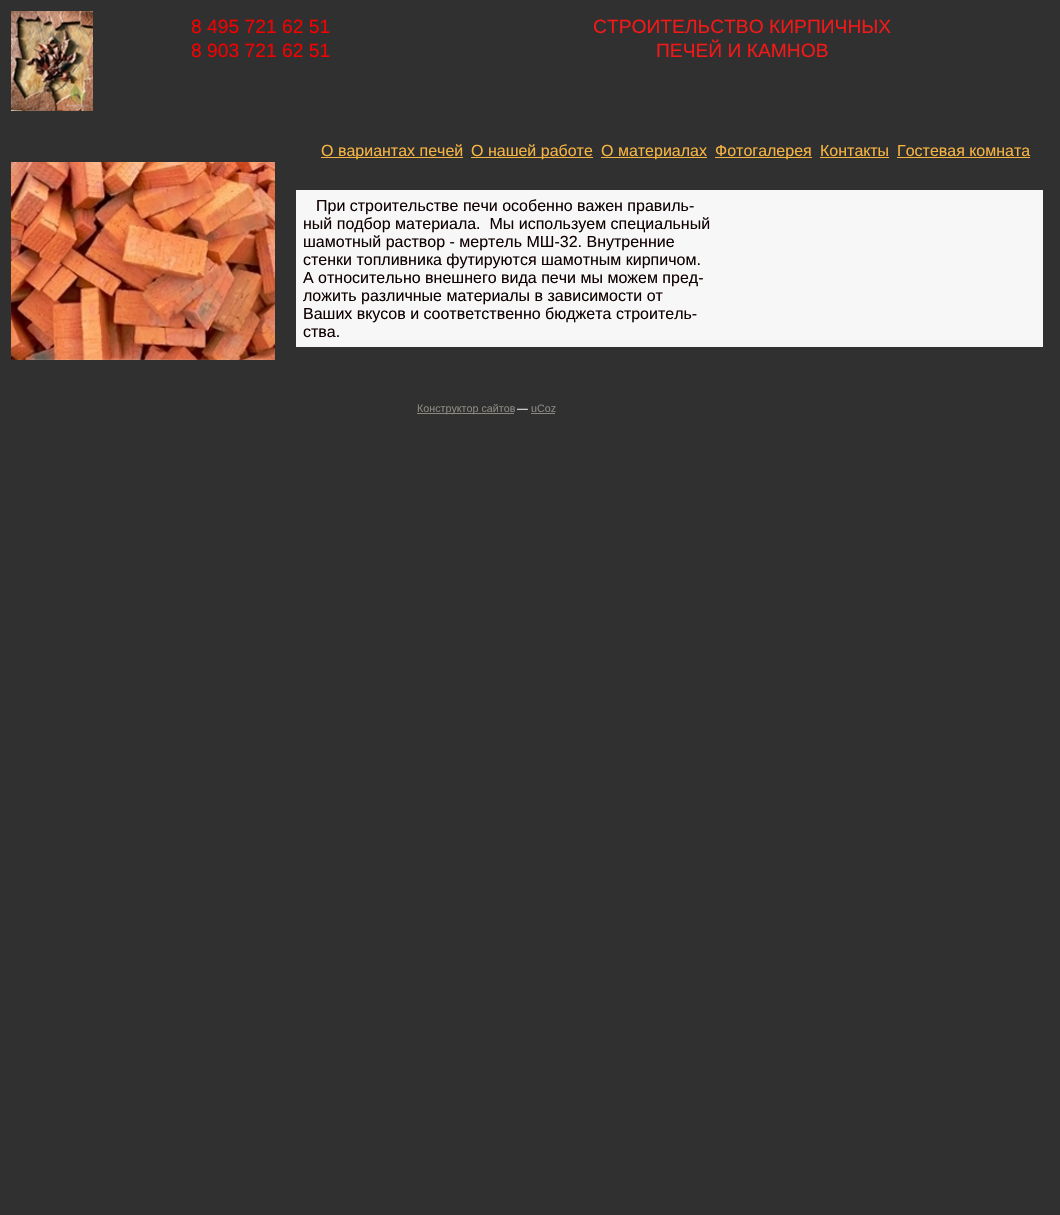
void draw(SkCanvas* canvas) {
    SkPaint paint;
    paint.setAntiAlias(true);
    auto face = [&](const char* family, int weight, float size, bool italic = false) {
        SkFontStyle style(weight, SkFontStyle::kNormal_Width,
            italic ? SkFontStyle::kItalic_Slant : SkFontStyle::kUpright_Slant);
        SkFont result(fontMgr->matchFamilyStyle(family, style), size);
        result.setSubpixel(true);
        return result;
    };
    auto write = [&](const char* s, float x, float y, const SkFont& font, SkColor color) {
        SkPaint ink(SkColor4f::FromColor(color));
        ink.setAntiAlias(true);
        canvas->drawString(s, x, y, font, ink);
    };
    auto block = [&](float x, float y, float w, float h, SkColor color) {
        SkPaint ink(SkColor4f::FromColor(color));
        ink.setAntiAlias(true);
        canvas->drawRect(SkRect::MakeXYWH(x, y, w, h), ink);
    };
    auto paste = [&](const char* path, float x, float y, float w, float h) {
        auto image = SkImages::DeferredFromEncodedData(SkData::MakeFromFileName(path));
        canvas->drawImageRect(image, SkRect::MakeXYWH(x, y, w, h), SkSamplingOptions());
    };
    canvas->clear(SkColorSetRGB(48, 48, 48));
    paste("pic1.png", 11, 11, 82, 100);
    auto kFont1 = face("Liberation Sans", 400, 19.25f);
    write("8 495 721 62 51", 191, 33, kFont1, SkColorSetRGB(245, 0, 0));
    write("8 903 721 62 51", 191, 57, kFont1, SkColorSetRGB(245, 0, 0));
    write("СТРОИТЕЛЬСТВО КИРПИЧНЫХ", 593, 33, kFont1, SkColorSetRGB(242, 24, 24));
    write("ПЕЧЕЙ И КАМНОВ", 656, 57, kFont1, SkColorSetRGB(242, 24, 24));
    paste("pic2.png", 11, 162, 264, 198);
    block(321, 157, 142, 1, SkColorSetRGB(245, 179, 66));
    auto kFont2 = face("Liberation Sans", 400, 16);
    write("О вариантах печей", 321, 156, kFont2, SkColorSetRGB(245, 179, 66));
    block(471, 157, 122, 1, SkColorSetRGB(245, 179, 66));
    write("О нашей работе", 471, 156, kFont2, SkColorSetRGB(245, 179, 66));
    block(601, 157, 106, 1, SkColorSetRGB(245, 179, 66));
    write("О материалах", 601, 156, kFont2, SkColorSetRGB(245, 179, 66));
    block(715, 157, 97, 1, SkColorSetRGB(245, 179, 66));
    write("Фотогалерея", 715, 156, kFont2, SkColorSetRGB(245, 179, 66));
    write("Контакты", 820, 156, kFont2, SkColorSetRGB(245, 179, 66));
    block(820, 157, 69, 1, SkColorSetRGB(245, 179, 66));
    write("Гостевая комната", 897, 156, kFont2, SkColorSetRGB(245, 179, 66));
    block(897, 157, 133, 1, SkColorSetRGB(245, 179, 66));
    block(296, 190, 747, 157, SkColorSetRGB(247, 247, 247));
    write("При строительстве печи особенно важен правиль-", 316, 211, kFont2, SkColorSetRGB(15, 1, 1));
    write("ный подбор материала.  Мы используем специальный", 303, 229, kFont2, SkColorSetRGB(15, 1, 1));
    write("шамотный раствор - мертель МШ-32. Внутренние", 303, 247, kFont2, SkColorSetRGB(15, 1, 1));
    write("стенки топливника футируются шамотным кирпичом.", 303, 265, kFont2, SkColorSetRGB(15, 1, 1));
    write("А относительно внешнего вида печи мы можем пред-", 303, 283, kFont2, SkColorSetRGB(15, 1, 1));
    write("ложить различные материалы в зависимости от", 303, 301, kFont2, SkColorSetRGB(15, 1, 1));
    write("Ваших вкусов и соответственно бюджета строитель-", 303, 319, kFont2, SkColorSetRGB(15, 1, 1));
    write("ства.", 303, 337, kFont2, SkColorSetRGB(15, 1, 1));
    block(417, 413, 97, 1, SkColorSetRGB(139, 136, 129));
    auto kFont3 = face("Liberation Sans", 400, 10.75f);
    write("Конструктор сайтов", 417, 412, kFont3, SkColorSetRGB(139, 136, 129));
    write("—", 517, 412, kFont3, SK_ColorWHITE);
    write("uCoz", 531, 412, kFont3, SkColorSetRGB(139, 136, 129));
    block(531, 413, 24, 1, SkColorSetRGB(139, 136, 129));
}
